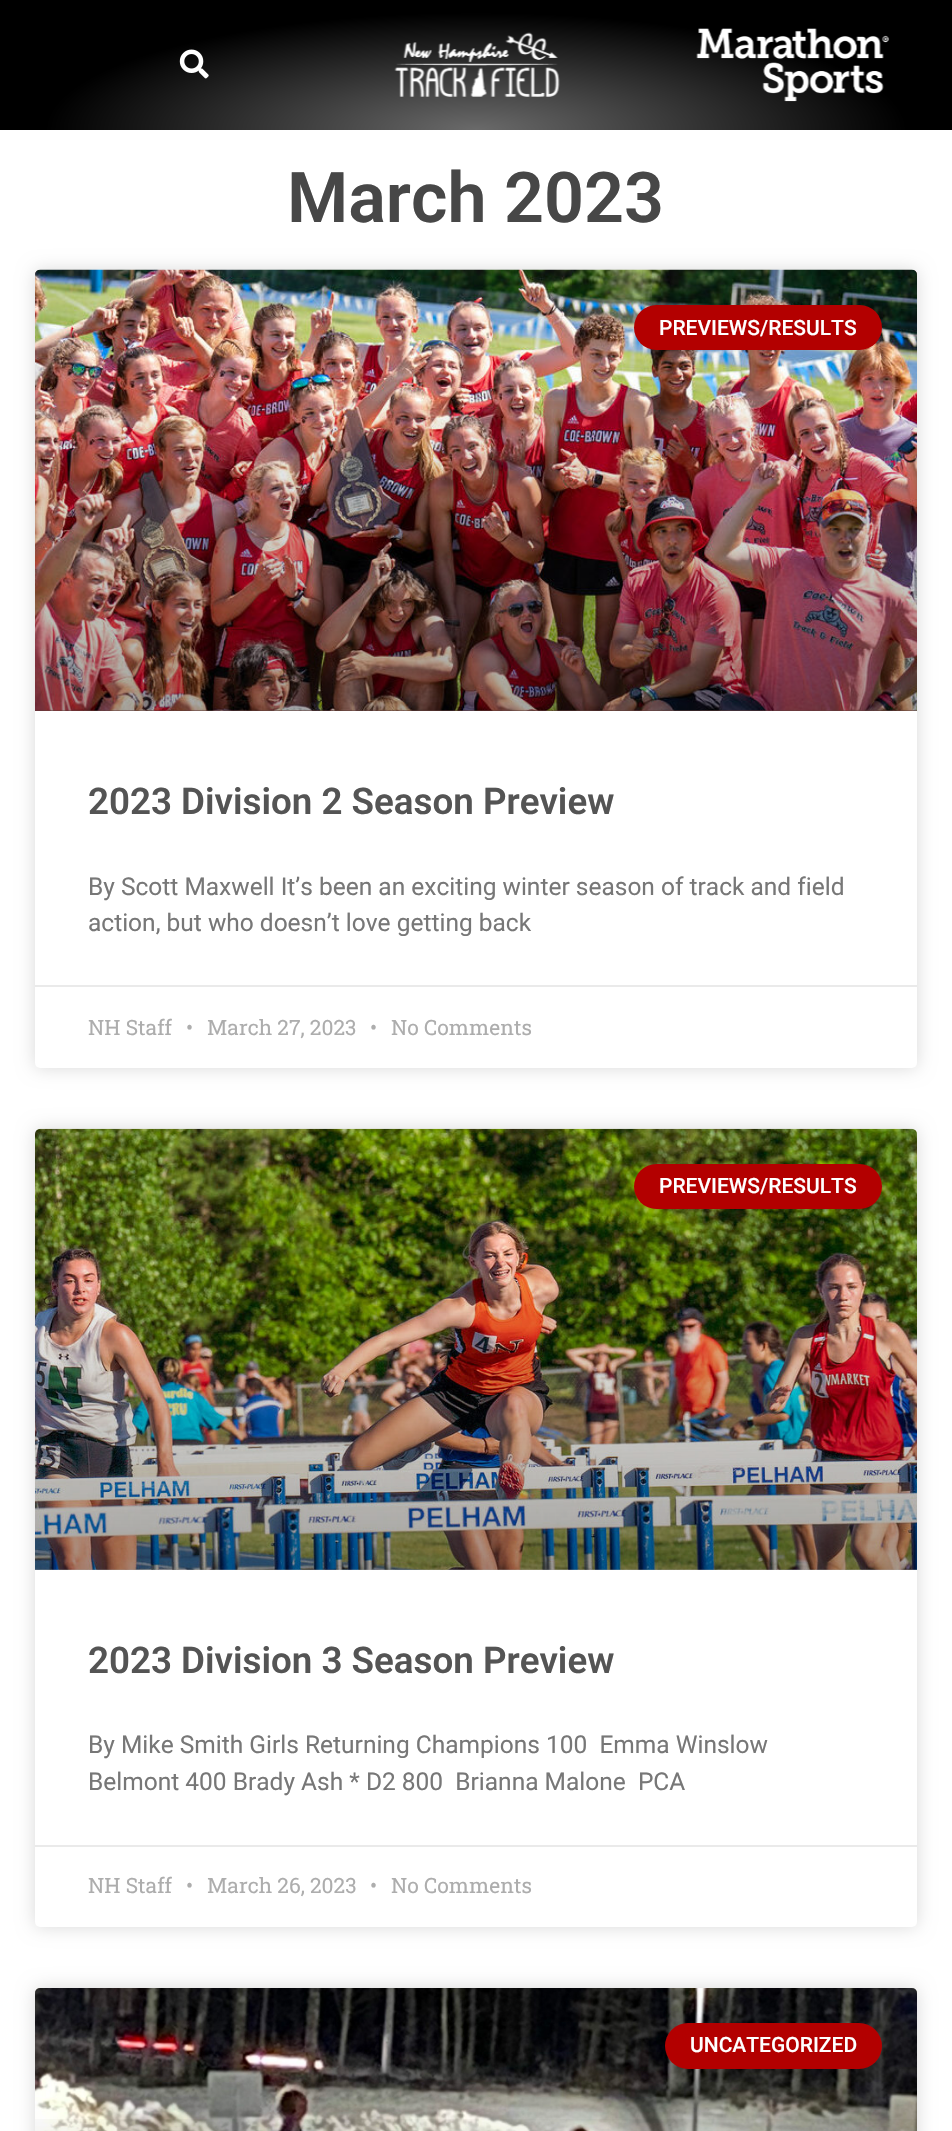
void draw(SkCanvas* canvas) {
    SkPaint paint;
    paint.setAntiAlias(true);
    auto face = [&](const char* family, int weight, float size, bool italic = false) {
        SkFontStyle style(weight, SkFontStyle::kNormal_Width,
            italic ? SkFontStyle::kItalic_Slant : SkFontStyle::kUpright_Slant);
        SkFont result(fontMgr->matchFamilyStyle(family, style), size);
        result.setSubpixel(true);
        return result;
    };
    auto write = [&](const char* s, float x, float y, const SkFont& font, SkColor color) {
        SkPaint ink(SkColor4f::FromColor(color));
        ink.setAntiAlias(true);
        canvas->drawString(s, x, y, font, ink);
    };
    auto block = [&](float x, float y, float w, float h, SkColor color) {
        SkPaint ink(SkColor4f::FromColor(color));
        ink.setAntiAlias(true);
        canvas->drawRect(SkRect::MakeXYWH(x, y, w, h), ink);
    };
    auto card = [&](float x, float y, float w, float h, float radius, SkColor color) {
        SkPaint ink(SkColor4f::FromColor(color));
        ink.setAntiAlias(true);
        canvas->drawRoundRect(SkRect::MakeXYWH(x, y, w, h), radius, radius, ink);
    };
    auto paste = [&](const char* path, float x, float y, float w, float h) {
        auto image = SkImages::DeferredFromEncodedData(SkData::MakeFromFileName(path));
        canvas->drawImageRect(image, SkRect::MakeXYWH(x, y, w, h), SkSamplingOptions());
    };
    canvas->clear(SK_ColorWHITE);
    {
        const SkColor colors[] = {SkColorSetRGB(106, 106, 106), SK_ColorBLACK};
        const float stops[] = {0, 0.64f};
        SkMatrix m = SkMatrix::Translate(476, 130).preScale(673, 183);
        paint.setShader(SkGradientShader::MakeRadial({0, 0}, 1, colors, stops, 2, SkTileMode::kClamp, 0, &m));
        paint.setAlpha(255);
    }
    canvas->drawRect(SkRect::MakeXYWH(0, 0, 952, 130), paint);
    paste("pic1.png", 179, 49, 30, 30);
    paste("pic2.png", 394, 32, 166, 65);
    paste("pic3.png", 696, 28, 194, 74);
    auto kFont1 = face("Roboto", 600, 70);
    write("March 2023", 287, 222, kFont1, SkColorSetRGB(71, 71, 71));
    paint.setShader(nullptr);
    paint.setColor(SkColorSetARGB(38, 0, 0, 0));
    paint.setMaskFilter(SkMaskFilter::MakeBlur(kNormal_SkBlurStyle, 9));
    canvas->drawRoundRect(SkRect::MakeXYWH(35, 270, 882, 798), 5, 5, paint);
    paint.setMaskFilter(nullptr);
    card(35, 270, 882, 798, 5, SK_ColorWHITE);
    paint.setColor(SkColorSetRGB(148, 94, 89));
    canvas->drawPath(SkPathBuilder().moveTo(40, 270).lineTo(912, 270).cubicTo(915, 270, 917, 272, 917, 275).lineTo(917, 711).lineTo(35, 711).lineTo(35, 275).cubicTo(35, 272, 37, 270, 40, 270).close().detach(), paint);
    paste("pic4.png", 35, 269, 882, 442);
    {
        const SkColor colors[] = {SkColorSetARGB(89, 0, 0, 0), SkColorSetARGB(0, 0, 0, 0)};
        const float stops[] = {0, 0.75f};
        const SkPoint ends[] = {{476, 711}, {476, 270}};
        paint.setShader(SkGradientShader::MakeLinear(ends, colors, stops, 2, SkTileMode::kClamp));
        paint.setAlpha(255);
    }
    canvas->drawRect(SkRect::MakeXYWH(35, 401, 882, 310), paint);
    card(634, 305, 248, 45, 22.5f, SkColorSetRGB(179, 0, 0));
    auto kFont2 = face("Roboto", 500, 21);
    write("PREVIEWS/RESULTS", 659, 335, kFont2, SK_ColorWHITE);
    auto kFont3 = face("Roboto", 600, 36.75f);
    write("2023 Division 2 Season Preview", 88, 814, kFont3, SkColorSetRGB(84, 84, 84));
    auto kFont4 = face("Roboto", 400, 24.5f);
    write("By Scott Maxwell It’s been an exciting winter season of track and field", 88, 895, kFont4, SkColorSetRGB(119, 119, 119));
    write("action, but who doesn’t love getting back", 88, 931, kFont4, SkColorSetRGB(119, 119, 119));
    block(35, 985, 882, 2, SkColorSetRGB(234, 234, 234));
    auto kFont5 = face("Roboto Slab", 400, 21);
    write("NH Staff", 88, 1035, kFont5, SkColorSetRGB(173, 173, 173));
    write("•", 186, 1035, kFont5, SkColorSetRGB(173, 173, 173));
    write("March 27, 2023", 207, 1035, kFont5, SkColorSetRGB(173, 173, 173));
    write("•", 370, 1035, kFont5, SkColorSetRGB(173, 173, 173));
    write("No Comments", 391, 1035, kFont5, SkColorSetRGB(173, 173, 173));
    paint.setShader(nullptr);
    paint.setColor(SkColorSetARGB(38, 0, 0, 0));
    paint.setMaskFilter(SkMaskFilter::MakeBlur(kNormal_SkBlurStyle, 9));
    canvas->drawRoundRect(SkRect::MakeXYWH(35, 1129, 882, 798), 5, 5, paint);
    paint.setMaskFilter(nullptr);
    card(35, 1129, 882, 798, 5, SK_ColorWHITE);
    paste("pic5.png", 35, 1128, 882, 442);
    {
        const SkColor colors[] = {SkColorSetARGB(89, 0, 0, 0), SkColorSetARGB(0, 0, 0, 0)};
        const float stops[] = {0, 0.75f};
        const SkPoint ends[] = {{476, 1570}, {476, 1129}};
        paint.setShader(SkGradientShader::MakeLinear(ends, colors, stops, 2, SkTileMode::kClamp));
        paint.setAlpha(255);
    }
    canvas->drawRect(SkRect::MakeXYWH(35, 1260, 882, 310), paint);
    card(634, 1164, 248, 45, 22.5f, SkColorSetRGB(179, 0, 0));
    write("PREVIEWS/RESULTS", 659, 1193, kFont2, SK_ColorWHITE);
    write("2023 Division 3 Season Preview", 88, 1673, kFont3, SkColorSetRGB(84, 84, 84));
    write("By Mike Smith Girls Returning Champions 100  Emma Winslow", 88, 1753, kFont4, SkColorSetRGB(119, 119, 119));
    write("Belmont 400 Brady Ash * D2 800  Brianna Malone  PCA", 88, 1790, kFont4, SkColorSetRGB(119, 119, 119));
    block(35, 1845, 882, 2, SkColorSetRGB(234, 234, 234));
    write("NH Staff", 88, 1893, kFont5, SkColorSetRGB(173, 173, 173));
    write("•", 186, 1893, kFont5, SkColorSetRGB(173, 173, 173));
    write("March 26, 2023", 207, 1893, kFont5, SkColorSetRGB(173, 173, 173));
    write("•", 370, 1893, kFont5, SkColorSetRGB(173, 173, 173));
    write("No Comments", 391, 1893, kFont5, SkColorSetRGB(173, 173, 173));
    paint.setShader(nullptr);
    paint.setColor(SkColorSetARGB(38, 0, 0, 0));
    paint.setMaskFilter(SkMaskFilter::MakeBlur(kNormal_SkBlurStyle, 9));
    canvas->drawRoundRect(SkRect::MakeXYWH(35, 1988, 882, 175), 5, 5, paint);
    paint.setMaskFilter(nullptr);
    paint.setColor(SkColorSetRGB(126, 121, 111));
    canvas->drawPath(SkPathBuilder().moveTo(40, 1988).lineTo(912, 1988).cubicTo(915, 1988, 917, 1990, 917, 1993).lineTo(917, 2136).lineTo(35, 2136).lineTo(35, 1993).cubicTo(35, 1990, 37, 1988, 40, 1988).close().detach(), paint);
    paste("pic6.png", 35, 1988, 882, 143);
    {
        const SkColor colors[] = {SkColorSetARGB(89, 0, 0, 0), SkColorSetARGB(0, 0, 0, 0)};
        const float stops[] = {0, 0.75f};
        const SkPoint ends[] = {{476, 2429}, {476, 1988}};
        paint.setShader(SkGradientShader::MakeLinear(ends, colors, stops, 2, SkTileMode::kClamp));
        paint.setAlpha(255);
    }
    canvas->drawRect(SkRect::MakeXYWH(35, 2119, 882, 12), paint);
    card(665, 2023, 217, 46, 23, SkColorSetRGB(179, 0, 0));
    write("UNCATEGORIZED", 690, 2052, kFont2, SK_ColorWHITE);
}
